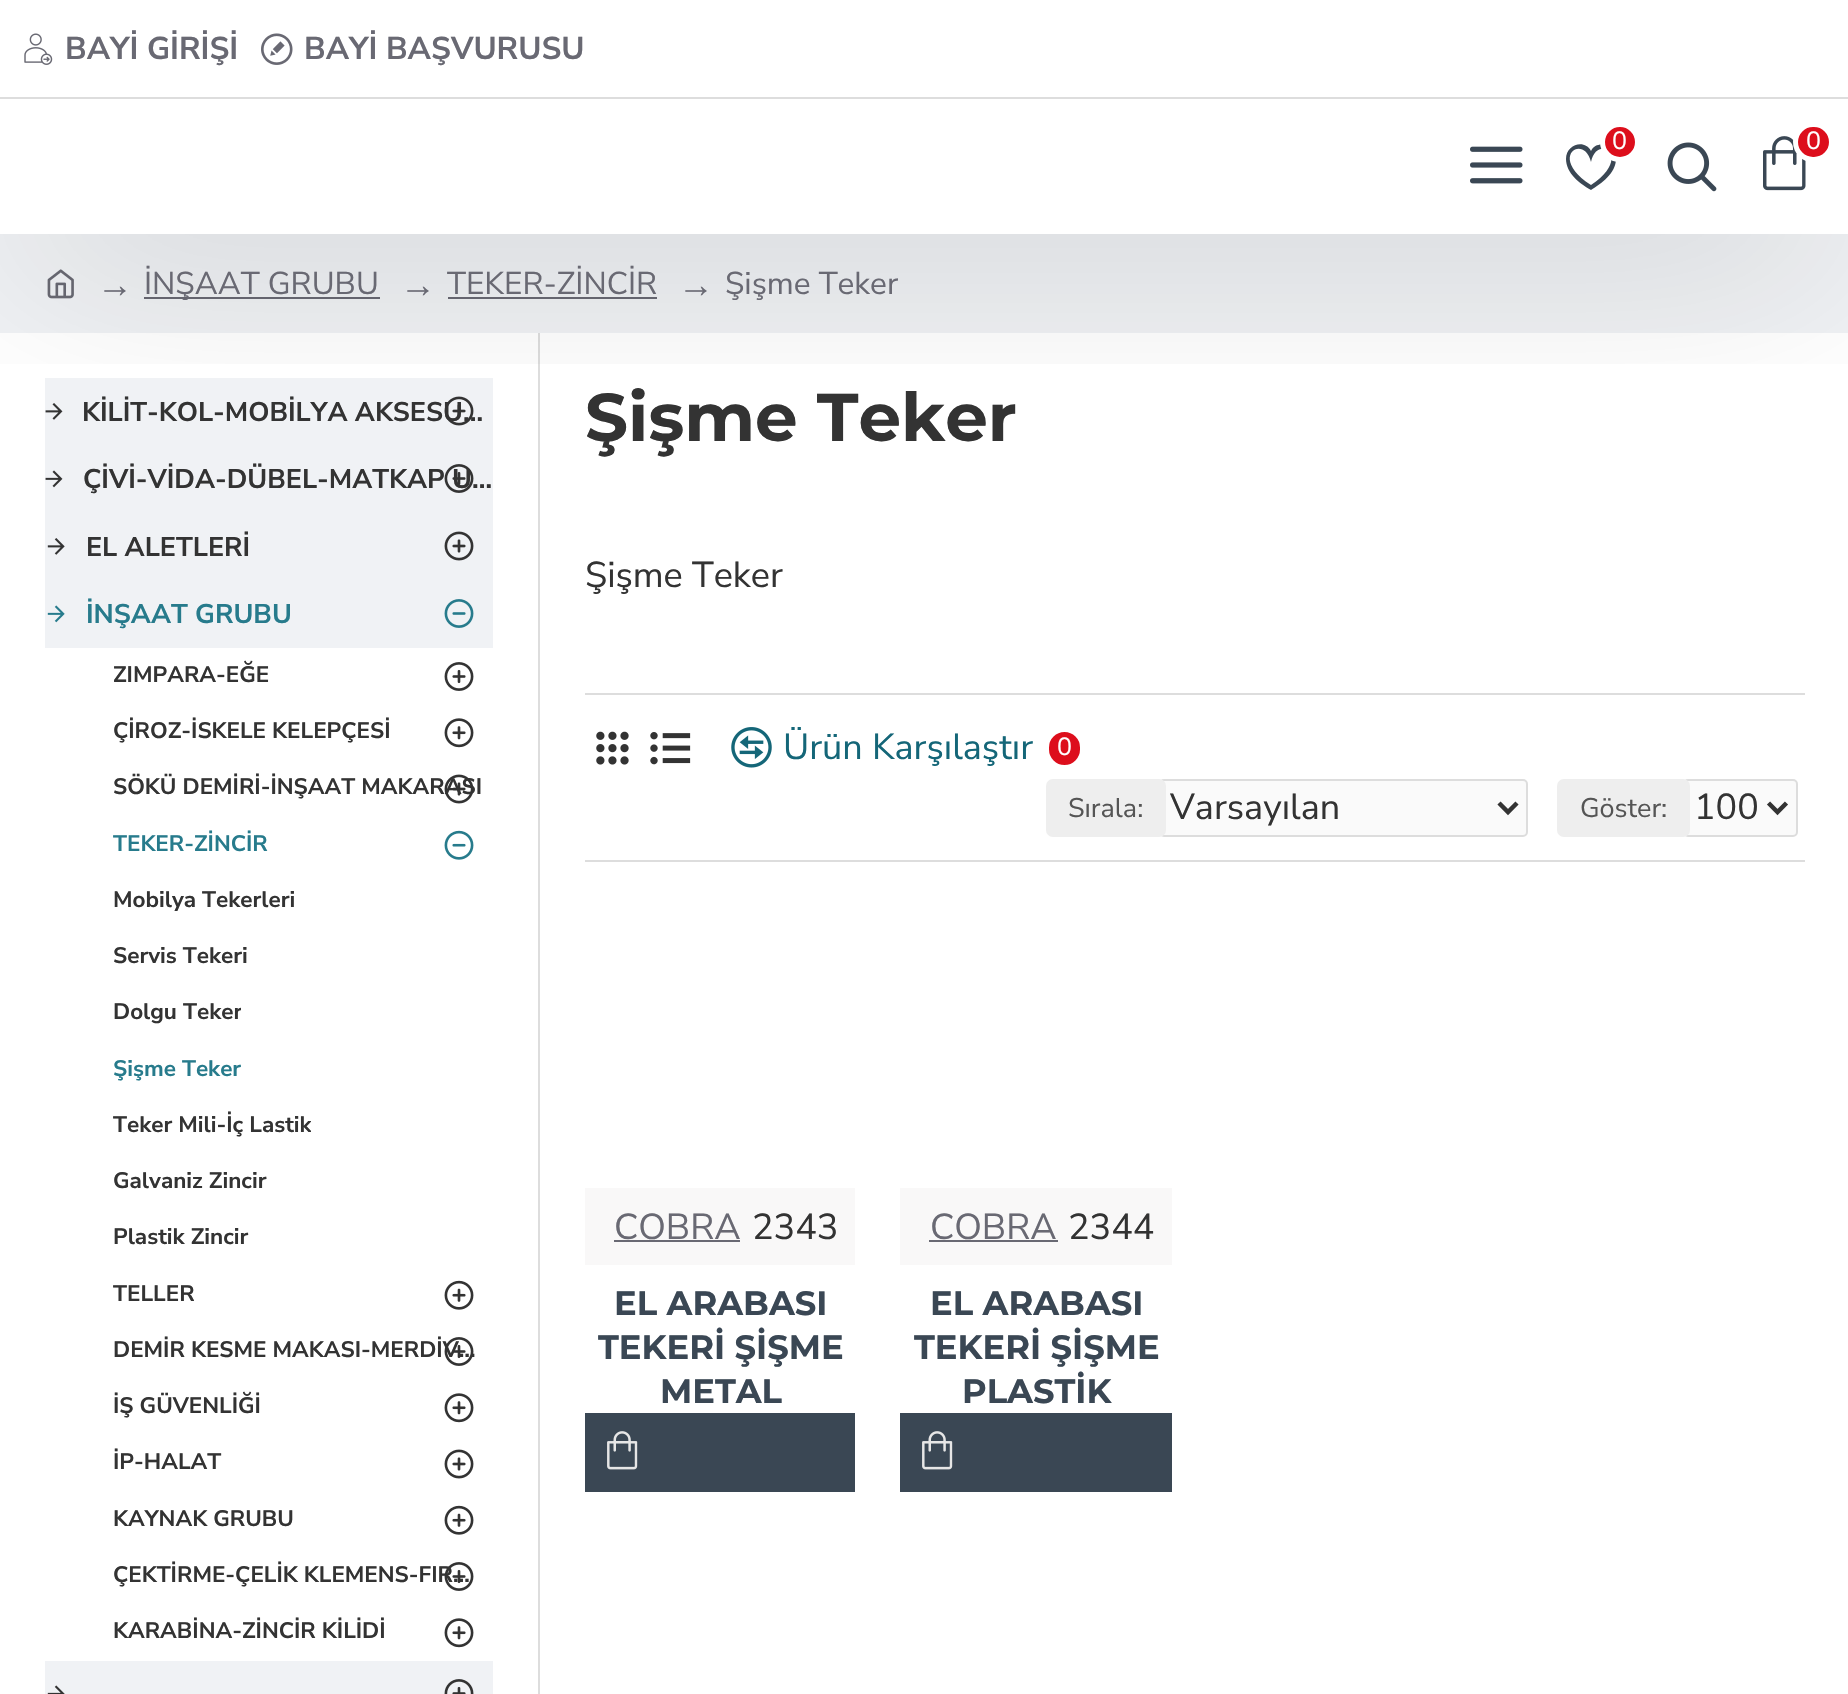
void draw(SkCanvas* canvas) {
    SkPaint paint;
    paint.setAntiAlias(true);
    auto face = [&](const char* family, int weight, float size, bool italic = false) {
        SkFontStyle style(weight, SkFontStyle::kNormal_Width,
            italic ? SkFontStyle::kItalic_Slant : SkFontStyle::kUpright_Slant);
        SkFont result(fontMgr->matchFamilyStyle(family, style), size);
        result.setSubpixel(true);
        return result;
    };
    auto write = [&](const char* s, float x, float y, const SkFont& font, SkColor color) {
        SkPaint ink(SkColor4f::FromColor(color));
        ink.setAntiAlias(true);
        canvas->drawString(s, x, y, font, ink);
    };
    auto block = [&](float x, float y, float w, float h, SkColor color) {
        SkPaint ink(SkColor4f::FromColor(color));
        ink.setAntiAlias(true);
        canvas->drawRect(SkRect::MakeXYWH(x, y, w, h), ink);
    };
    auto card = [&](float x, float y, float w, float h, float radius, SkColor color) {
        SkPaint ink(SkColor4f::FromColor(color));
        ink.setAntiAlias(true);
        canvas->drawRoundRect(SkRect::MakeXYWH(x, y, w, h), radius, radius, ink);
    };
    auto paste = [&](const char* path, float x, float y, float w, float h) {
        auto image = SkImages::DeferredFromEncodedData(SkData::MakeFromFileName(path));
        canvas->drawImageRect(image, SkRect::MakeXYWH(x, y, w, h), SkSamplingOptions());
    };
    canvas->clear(SK_ColorWHITE);
    block(0, 234, 1848, 99, SkColorSetRGB(240, 242, 245));
    paste("pic6.png", 47, 269, 27, 30);
    block(144, 297, 236, 2, SkColorSetRGB(105, 105, 115));
    block(448, 297, 209, 2, SkColorSetRGB(105, 105, 115));
    block(538, 333, 2, 1361, SkColorSetRGB(221, 221, 221));
    block(45, 378, 448, 270, SkColorSetRGB(240, 242, 245));
    paste("pic7.png", 45, 403, 18, 17);
    auto kFont1 = face("Nunito Sans", 700, 27);
    write("KİLİT-KOL-MOBİLYA AKSESU…", 82, 421, kFont1, SkColorSetRGB(51, 51, 51));
    paste("pic8.png", 444, 396, 30, 30);
    paste("pic9.png", 45, 470, 18, 18);
    write("ÇİVİ-VİDA-DÜBEL-MATKAP U…", 83, 488, kFont1, SkColorSetRGB(51, 51, 51));
    paste("pic10.png", 444, 464, 30, 29);
    paste("pic11.png", 47, 538, 18, 17);
    paste("pic12.png", 444, 531, 30, 30);
    canvas->save();
    canvas->clipRect(SkRect::MakeXYWH(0, 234, 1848, 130));
    paint.setColor(SkColorSetARGB(51, 0, 0, 0));
    paint.setMaskFilter(SkMaskFilter::MakeBlur(kNormal_SkBlurStyle, 101));
    canvas->drawRect(SkRect::MakeXYWH(23, 155, 1804, 90), paint);
    paint.setMaskFilter(nullptr);
    canvas->restore();
    block(0, 0, 1848, 97, SK_ColorWHITE);
    block(0, 97, 1848, 2, SkColorSetRGB(221, 221, 221));
    paste("pic1.png", 24, 33, 29, 32);
    auto kFont2 = face("Nunito Sans", 700, 31.5f);
    write("BAYİ GİRİŞİ", 65, 59, kFont2, SkColorSetRGB(105, 105, 115));
    paste("pic2.png", 261, 33, 32, 32);
    write("BAYİ BAŞVURUSU", 304, 59, kFont2, SkColorSetRGB(105, 105, 115));
    paste("pic3.png", 1470, 146, 53, 38);
    paint.setColor(SkColorSetRGB(58, 71, 84));
    canvas->drawPath(SkPathBuilder().moveTo(1591, 162).cubicTo(1597, 133, 1634, 157, 1591, 185).cubicTo(1547, 157, 1584, 133, 1591, 162).close().moveTo(1566, 159).cubicTo(1566, 173, 1580, 184, 1591, 190).cubicTo(1601, 184, 1616, 173, 1616, 159).cubicTo(1615, 156, 1615, 153, 1613, 150).cubicTo(1608, 143, 1595, 142, 1591, 151).cubicTo(1585, 139, 1566, 144, 1566, 159).close().detach(), paint);
    paint.setColor(SkColorSetRGB(221, 14, 28));
    canvas->drawCircle(1620, 142, 17.5f, paint);
    paint.setStyle(SkPaint::kStroke_Style);
    paint.setStrokeWidth(5);
    paint.setColor(SK_ColorWHITE);
    canvas->drawCircle(1620, 142, 17.5f, paint);
    auto kFont3 = face("Nunito Sans", 400, 25);
    write("0", 1612, 149, kFont3, SK_ColorWHITE);
    paste("pic4.png", 1667, 142, 50, 50);
    paste("pic5.png", 1763, 136, 43, 55);
    paint.setStyle(SkPaint::kFill_Style);
    paint.setColor(SkColorSetRGB(221, 14, 28));
    canvas->drawRoundRect(SkRect::MakeXYWH(1795.5f, 124.5f, 36, 35), 17.5f, 17.5f, paint);
    paint.setStyle(SkPaint::kStroke_Style);
    paint.setColor(SK_ColorWHITE);
    canvas->drawRoundRect(SkRect::MakeXYWH(1795.5f, 124.5f, 36, 35), 17.5f, 17.5f, paint);
    write("0", 1806, 149, kFont3, SK_ColorWHITE);
    auto kFont4 = face("Liberation Serif", 400, 36);
    write("→", 97, 297, kFont4, SkColorSetRGB(105, 105, 115));
    auto kFont5 = face("Nunito Sans", 400, 31.5f);
    write("İNŞAAT GRUBU", 144, 294, kFont5, SkColorSetRGB(105, 105, 115));
    write("→", 400, 297, kFont4, SkColorSetRGB(105, 105, 115));
    write("TEKER-ZİNCİR", 447, 294, kFont5, SkColorSetRGB(105, 105, 115));
    write("→", 678, 297, kFont4, SkColorSetRGB(105, 105, 115));
    write("Şişme Teker", 725, 294, kFont5, SkColorSetRGB(105, 105, 115));
    write("EL ALETLERİ", 86, 556, kFont1, SkColorSetRGB(51, 51, 51));
    paste("pic13.png", 47, 605, 18, 18);
    write("İNŞAAT GRUBU", 86, 623, kFont1, SkColorSetRGB(39, 123, 140));
    paste("pic14.png", 444, 599, 30, 29);
    auto kFont6 = face("Nunito Sans", 700, 22.5f);
    write("ZIMPARA-EĞE", 113, 682, kFont6, SkColorSetRGB(51, 51, 51));
    paste("pic15.png", 444, 662, 30, 29);
    write("ÇİROZ-İSKELE KELEPÇESİ", 113, 738, kFont6, SkColorSetRGB(51, 51, 51));
    paste("pic16.png", 444, 718, 30, 30);
    write("SÖKÜ DEMİRİ-İNŞAAT MAKARASI", 113, 794, kFont6, SkColorSetRGB(51, 51, 51));
    paste("pic17.png", 444, 774, 30, 30);
    canvas->save();
    canvas->clipRect(SkRect::MakeXYWH(113, 828, 155, 34));
    write("TEKER-ZİNCİR", 113, 851, kFont6, SkColorSetRGB(39, 123, 140));
    canvas->restore();
    paste("pic18.png", 444, 830, 30, 30);
    write("Mobilya Tekerleri", 113, 907, kFont6, SkColorSetRGB(51, 51, 51));
    write("Servis Tekeri", 113, 963, kFont6, SkColorSetRGB(51, 51, 51));
    canvas->save();
    canvas->clipRect(SkRect::MakeXYWH(113, 997, 128, 34));
    write("Dolgu Teker", 113, 1019, kFont6, SkColorSetRGB(51, 51, 51));
    canvas->restore();
    write("Şişme Teker", 113, 1076, kFont6, SkColorSetRGB(39, 123, 140));
    canvas->save();
    canvas->clipRect(SkRect::MakeXYWH(113, 1109, 198, 34));
    write("Teker Mili-İç Lastik", 113, 1132, kFont6, SkColorSetRGB(51, 51, 51));
    canvas->restore();
    write("Galvaniz Zincir", 113, 1188, kFont6, SkColorSetRGB(51, 51, 51));
    write("Plastik Zincir", 113, 1244, kFont6, SkColorSetRGB(51, 51, 51));
    canvas->save();
    canvas->clipRect(SkRect::MakeXYWH(113, 1278, 81, 34));
    write("TELLER", 113, 1301, kFont6, SkColorSetRGB(51, 51, 51));
    canvas->restore();
    paste("pic19.png", 444, 1280, 30, 30);
    write("DEMİR KESME MAKASI-MERDİV…", 113, 1357, kFont6, SkColorSetRGB(51, 51, 51));
    paste("pic20.png", 444, 1337, 30, 29);
    write("İŞ GÜVENLİĞİ", 113, 1413, kFont6, SkColorSetRGB(51, 51, 51));
    paste("pic16.png", 444, 1393, 30, 30);
    write("İP-HALAT", 113, 1469, kFont6, SkColorSetRGB(51, 51, 51));
    paste("pic21.png", 444, 1449, 30, 30);
    write("KAYNAK GRUBU", 113, 1526, kFont6, SkColorSetRGB(51, 51, 51));
    paste("pic19.png", 444, 1505, 30, 30);
    write("ÇEKTİRME-ÇELİK KLEMENS-FIR…", 113, 1582, kFont6, SkColorSetRGB(51, 51, 51));
    paste("pic22.png", 444, 1562, 30, 29);
    write("KARABİNA-ZİNCİR KİLİDİ", 113, 1638, kFont6, SkColorSetRGB(51, 51, 51));
    paste("pic16.png", 444, 1618, 30, 30);
    block(45, 1661, 448, 33, SkColorSetRGB(240, 242, 245));
    paste("pic23.png", 47, 1685, 18, 9);
    paste("pic24.png", 444, 1679, 30, 15);
    auto kFont7 = face("Montserrat", 700, 67.5f);
    write("Şişme Teker", 585, 441, kFont7, SkColorSetRGB(51, 51, 51));
    auto kFont8 = face("Nunito Sans", 400, 36);
    write("Şişme Teker", 585, 587, kFont8, SkColorSetRGB(51, 51, 51));
    block(585, 693, 1220, 2, SkColorSetRGB(221, 221, 221));
    block(585, 860, 1220, 2, SkColorSetRGB(221, 221, 221));
    paste("pic25.png", 596, 731, 33, 34);
    paste("pic26.png", 650, 732, 41, 33);
    paste("pic27.png", 731, 727, 41, 41);
    write("Ürün Karşılaştır", 783, 759, kFont8, SkColorSetRGB(20, 102, 120));
    paint.setStyle(SkPaint::kFill_Style);
    paint.setColor(SkColorSetRGB(221, 14, 28));
    canvas->drawRoundRect(SkRect::MakeXYWH(1046.5f, 729.5f, 36, 38), 18, 18, paint);
    paint.setStyle(SkPaint::kStroke_Style);
    paint.setColor(SK_ColorWHITE);
    canvas->drawRoundRect(SkRect::MakeXYWH(1046.5f, 729.5f, 36, 38), 18, 18, paint);
    write("0", 1057, 755, kFont3, SK_ColorWHITE);
    paint.setStyle(SkPaint::kFill_Style);
    paint.setColor(SkColorSetRGB(250, 250, 250));
    canvas->drawRoundRect(SkRect::MakeXYWH(1160, 780, 367, 56), 4, 4, paint);
    paint.setStyle(SkPaint::kStroke_Style);
    paint.setStrokeWidth(2);
    paint.setColor(SkColorSetRGB(221, 221, 221));
    canvas->drawRoundRect(SkRect::MakeXYWH(1160, 780, 367, 56), 4, 4, paint);
    card(1046, 779, 120, 58, 7, SkColorSetRGB(238, 238, 238));
    auto kFont9 = face("Nunito Sans", 400, 27);
    write("Sırala:", 1068, 817, kFont9, SkColorSetRGB(85, 85, 85));
    paint.setStrokeWidth(4.5f);
    paint.setColor(SkColorSetRGB(51, 51, 51));
    canvas->drawPath(SkPathBuilder().moveTo(1499, 803).lineTo(1508, 812).lineTo(1517, 803).detach(), paint);
    write("Varsayılan", 1170, 819, kFont8, SkColorSetRGB(51, 51, 51));
    paint.setStyle(SkPaint::kFill_Style);
    paint.setColor(SkColorSetRGB(250, 250, 250));
    canvas->drawRoundRect(SkRect::MakeXYWH(1684, 780, 113, 56), 4, 4, paint);
    paint.setStyle(SkPaint::kStroke_Style);
    paint.setStrokeWidth(2);
    paint.setColor(SkColorSetRGB(221, 221, 221));
    canvas->drawRoundRect(SkRect::MakeXYWH(1684, 780, 113, 56), 4, 4, paint);
    card(1557, 779, 133, 58, 7, SkColorSetRGB(238, 238, 238));
    write("Göster:", 1580, 817, kFont9, SkColorSetRGB(85, 85, 85));
    paint.setStrokeWidth(4.5f);
    paint.setColor(SkColorSetRGB(51, 51, 51));
    canvas->drawPath(SkPathBuilder().moveTo(1768.5f, 803).lineTo(1777.5f, 812).lineTo(1786.5f, 803).detach(), paint);
    write("100", 1694, 819, kFont8, SkColorSetRGB(51, 51, 51));
    block(585, 1188, 270, 77, SkColorSetRGB(249, 248, 248));
    write("COBRA", 614, 1239, kFont8, SkColorSetRGB(105, 105, 115));
    block(614, 1240, 126, 2, SkColorSetRGB(105, 105, 115));
    write("2343", 752, 1239, kFont8, SkColorSetRGB(51, 51, 51));
    auto kFont10 = face("Montserrat", 700, 33.75f);
    write("EL ARABASI", 614, 1315, kFont10, SkColorSetRGB(58, 71, 84));
    write("TEKERİ ŞİŞME", 598, 1359, kFont10, SkColorSetRGB(58, 71, 84));
    write("METAL", 660, 1403, kFont10, SkColorSetRGB(58, 71, 84));
    block(585, 1413, 270, 79, SkColorSetRGB(58, 71, 84));
    paste("pic28.png", 607, 1431, 31, 39);
    block(900, 1188, 272, 77, SkColorSetRGB(249, 248, 248));
    write("COBRA", 930, 1239, kFont8, SkColorSetRGB(105, 105, 115));
    block(929, 1240, 129, 2, SkColorSetRGB(105, 105, 115));
    write("2344", 1068, 1239, kFont8, SkColorSetRGB(51, 51, 51));
    write("EL ARABASI", 930, 1315, kFont10, SkColorSetRGB(58, 71, 84));
    write("TEKERİ ŞİŞME", 914, 1359, kFont10, SkColorSetRGB(58, 71, 84));
    write("PLASTİK", 962, 1403, kFont10, SkColorSetRGB(58, 71, 84));
    block(900, 1413, 272, 79, SkColorSetRGB(58, 71, 84));
    paste("pic28.png", 922, 1431, 31, 39);
}
